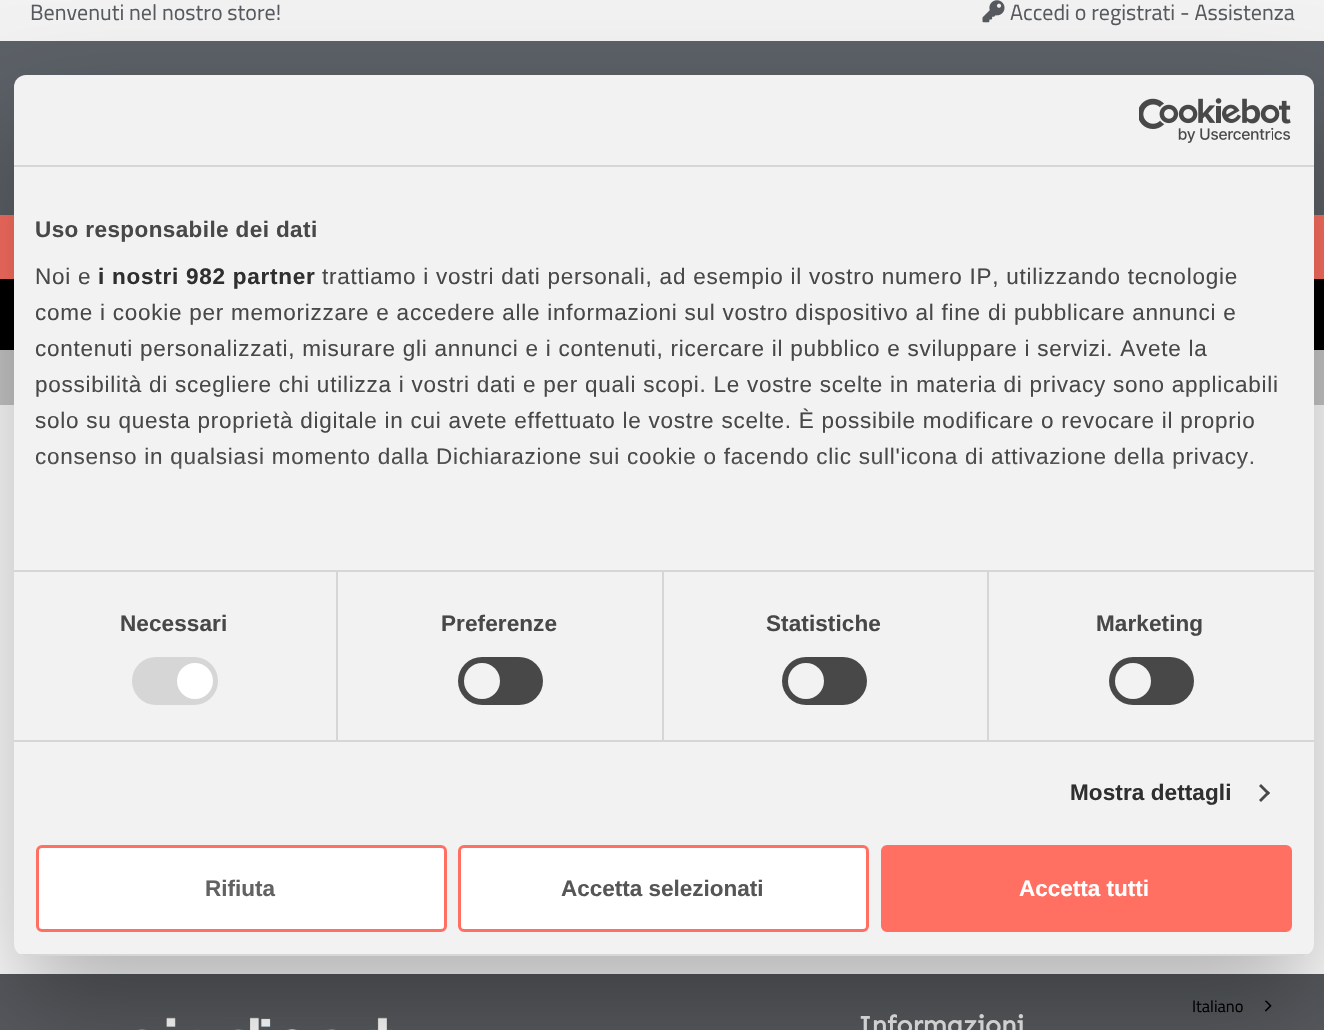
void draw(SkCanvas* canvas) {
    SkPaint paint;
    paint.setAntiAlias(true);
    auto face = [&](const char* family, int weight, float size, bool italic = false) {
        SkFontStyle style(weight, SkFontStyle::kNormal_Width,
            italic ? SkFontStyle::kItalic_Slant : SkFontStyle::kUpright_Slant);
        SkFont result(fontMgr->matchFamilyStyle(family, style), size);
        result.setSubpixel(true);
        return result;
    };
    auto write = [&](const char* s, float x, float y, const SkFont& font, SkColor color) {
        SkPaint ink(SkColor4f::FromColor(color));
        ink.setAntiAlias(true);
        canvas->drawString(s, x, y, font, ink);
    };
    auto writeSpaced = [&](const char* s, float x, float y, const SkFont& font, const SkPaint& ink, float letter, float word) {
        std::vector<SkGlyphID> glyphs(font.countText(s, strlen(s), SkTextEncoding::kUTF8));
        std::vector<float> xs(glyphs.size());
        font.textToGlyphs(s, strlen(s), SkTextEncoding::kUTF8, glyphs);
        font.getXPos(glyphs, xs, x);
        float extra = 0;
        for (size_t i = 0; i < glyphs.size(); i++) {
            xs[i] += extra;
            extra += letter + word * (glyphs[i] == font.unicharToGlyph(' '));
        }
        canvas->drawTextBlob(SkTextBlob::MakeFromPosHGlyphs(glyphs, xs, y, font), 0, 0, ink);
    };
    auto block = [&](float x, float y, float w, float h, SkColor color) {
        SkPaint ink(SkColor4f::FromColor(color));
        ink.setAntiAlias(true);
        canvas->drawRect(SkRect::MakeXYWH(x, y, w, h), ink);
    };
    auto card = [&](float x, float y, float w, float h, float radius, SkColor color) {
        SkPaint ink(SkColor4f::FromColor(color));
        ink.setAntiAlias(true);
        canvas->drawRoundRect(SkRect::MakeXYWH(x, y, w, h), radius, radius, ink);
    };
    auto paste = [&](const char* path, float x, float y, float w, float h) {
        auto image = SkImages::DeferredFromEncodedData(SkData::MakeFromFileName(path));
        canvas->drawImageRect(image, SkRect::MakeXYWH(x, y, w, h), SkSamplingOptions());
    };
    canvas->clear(SK_ColorWHITE);
    block(0, 0, 1324, 41, SkColorSetRGB(242, 242, 242));
    auto kFont1 = face("Titillium Web", 400, 22);
    write("Benvenuti nel nostro store!", 30, 20, kFont1, SkColorSetRGB(86, 89, 93));
    paste("pic1.png", 982, 0, 23, 23);
    write("Accedi o registrati - Assistenza", 1010, 20, kFont1, SkColorSetRGB(86, 89, 93));
    block(0, 41, 1324, 174, SkColorSetRGB(92, 97, 103));
    block(0, 215, 1324, 64, SkColorSetRGB(255, 112, 98));
    block(0, 279, 1324, 71, SK_ColorBLACK);
    block(0, 350, 1324, 55, SkColorSetRGB(201, 200, 200));
    block(0, 974, 1324, 56, SkColorSetRGB(86, 89, 93));
    paste("pic4.png", 137, 1017, 256, 13);
    paint.setColor(SkColorSetARGB(77, 0, 0, 0));
    paint.setMaskFilter(SkMaskFilter::MakeBlur(kNormal_SkBlurStyle, 51));
    canvas->drawRoundRect(SkRect::MakeXYWH(14, 123, 1300, 881), 12, 12, paint);
    paint.setMaskFilter(nullptr);
    card(14, 75, 1300, 881, 12, SkColorSetRGB(242, 242, 242));
    block(14, 165, 1300, 2, SkColorSetRGB(214, 214, 214));
    paste("pic2.png", 1139, 98, 152, 45);
    block(14, 570, 1300, 2, SkColorSetRGB(214, 214, 214));
    auto kFont2 = face("Liberation Sans", 700, 22.5f);
    paint.setColor(SkColorSetRGB(72, 72, 72));
    writeSpaced("Uso responsabile dei dati", 35, 237, kFont2, paint, 0.4f, 0);
    auto kFont3 = face("Liberation Sans", 400, 22.5f);
    writeSpaced("Noi e", 35, 284, kFont3, paint, 0.75f, 0);
    paint.setColor(SkColorSetRGB(47, 47, 47));
    writeSpaced("i nostri 982 partner", 98, 284, kFont2, paint, 0.75f, 0);
    paint.setColor(SkColorSetRGB(72, 72, 72));
    writeSpaced("trattiamo i vostri dati personali, ad esempio il vostro numero IP, utilizzando tecnologie", 322, 284, kFont3, paint, 0.75f, 0);
    writeSpaced("come i cookie per memorizzare e accedere alle informazioni sul vostro dispositivo al fine di pubblicare annunci e", 35, 320, kFont3, paint, 0.75f, 0);
    writeSpaced("contenuti personalizzati, misurare gli annunci e i contenuti, ricercare il pubblico e sviluppare i servizi. Avete la", 35, 356, kFont3, paint, 0.75f, 0);
    writeSpaced("possibilità di scegliere chi utilizza i vostri dati e per quali scopi. Le vostre scelte in materia di privacy sono applicabili", 35, 392, kFont3, paint, 0.75f, 0);
    writeSpaced("solo su questa proprietà digitale in cui avete effettuato le vostre scelte. È possibile modificare o revocare il proprio", 35, 428, kFont3, paint, 0.75f, 0);
    writeSpaced("consenso in qualsiasi momento dalla Dichiarazione sui cookie o facendo clic sull'icona di attivazione della privacy.", 35, 464, kFont3, paint, 0.75f, 0);
    {
        const SkColor colors[] = {SkColorSetRGB(242, 242, 242), SkColorSetARGB(204, 242, 242, 242), SkColorSetARGB(0, 242, 242, 242)};
        const float stops[] = {0, 0.5f, 1};
        const SkPoint ends[] = {{653, 571}, {653, 458}};
        paint.setShader(SkGradientShader::MakeLinear(ends, colors, stops, 3, SkTileMode::kClamp));
        paint.setAlpha(255);
    }
    canvas->drawRect(SkRect::MakeXYWH(36, 460, 1217, 9), paint);
    block(14, 740, 1300, 2, SkColorSetRGB(214, 214, 214));
    block(336, 572, 2, 168, SkColorSetRGB(214, 214, 214));
    paint.setShader(nullptr);
    paint.setColor(SkColorSetRGB(72, 72, 72));
    writeSpaced("Necessari", 120, 631, kFont2, paint, 0.1f, 0);
    card(132, 657, 86, 48, 24, SkColorSetRGB(214, 214, 214));
    paint.setColor(SK_ColorWHITE);
    canvas->drawCircle(195, 681, 18, paint);
    block(662, 572, 2, 168, SkColorSetRGB(214, 214, 214));
    paint.setColor(SkColorSetRGB(72, 72, 72));
    writeSpaced("Preferenze", 441, 631, kFont2, paint, 0.1f, 0);
    card(458, 657, 85, 48, 24, SkColorSetRGB(72, 72, 72));
    paint.setColor(SkColorSetRGB(242, 242, 242));
    canvas->drawCircle(482, 681, 18, paint);
    block(987, 572, 2, 168, SkColorSetRGB(214, 214, 214));
    paint.setColor(SkColorSetRGB(72, 72, 72));
    writeSpaced("Statistiche", 766, 631, kFont2, paint, 0.1f, 0);
    card(782, 657, 85, 48, 24, SkColorSetRGB(72, 72, 72));
    paint.setColor(SkColorSetRGB(242, 242, 242));
    canvas->drawCircle(806, 681, 18, paint);
    paint.setColor(SkColorSetRGB(72, 72, 72));
    writeSpaced("Marketing", 1096, 631, kFont2, paint, 0.1f, 0);
    card(1109, 657, 85, 48, 24, SkColorSetRGB(72, 72, 72));
    paint.setColor(SkColorSetRGB(242, 242, 242));
    canvas->drawCircle(1133, 681, 18, paint);
    paint.setColor(SkColorSetRGB(47, 47, 47));
    writeSpaced("Mostra dettagli", 1070, 800, kFont2, paint, 0.1f, 0);
    paint.setColor(SkColorSetRGB(72, 72, 72));
    canvas->drawPath(SkPathBuilder().moveTo(1261, 784).lineTo(1270, 793).lineTo(1268, 795).lineTo(1259, 786).close().detach(), paint);
    canvas->drawPath(SkPathBuilder().moveTo(1268, 791).lineTo(1270, 793).lineTo(1261, 802).lineTo(1259, 800).close().detach(), paint);
    canvas->save();
    canvas->clipPath(SkPathBuilder().moveTo(26, 75).lineTo(1302, 75).cubicTo(1308.5f, 75, 1314, 80.5f, 1314, 87).lineTo(1314, 944).cubicTo(1314, 950.5f, 1308.5f, 956, 1302, 956).lineTo(26, 956).cubicTo(19.5f, 956, 14, 950.5f, 14, 944).lineTo(14, 87).cubicTo(14, 80.5f, 19.5f, 75, 26, 75).close().detach(), true);
    block(14, 954, 1300, 2, SkColorSetRGB(214, 214, 214));
    canvas->restore();
    paint.setColor(SK_ColorWHITE);
    canvas->drawRoundRect(SkRect::MakeXYWH(37.5f, 846.5f, 408, 84), 4.5f, 4.5f, paint);
    paint.setStyle(SkPaint::kStroke_Style);
    paint.setStrokeWidth(3);
    paint.setColor(SkColorSetRGB(255, 112, 98));
    canvas->drawRoundRect(SkRect::MakeXYWH(37.5f, 846.5f, 408, 84), 4.5f, 4.5f, paint);
    write("Rifiuta", 205, 896, kFont2, SkColorSetRGB(98, 98, 98));
    paint.setStyle(SkPaint::kFill_Style);
    paint.setColor(SK_ColorWHITE);
    canvas->drawRoundRect(SkRect::MakeXYWH(459.5f, 846.5f, 408, 84), 4.5f, 4.5f, paint);
    paint.setStyle(SkPaint::kStroke_Style);
    paint.setColor(SkColorSetRGB(255, 112, 98));
    canvas->drawRoundRect(SkRect::MakeXYWH(459.5f, 846.5f, 408, 84), 4.5f, 4.5f, paint);
    write("Accetta selezionati", 561, 896, kFont2, SkColorSetRGB(86, 86, 86));
    paint.setStyle(SkPaint::kFill_Style);
    canvas->drawRoundRect(SkRect::MakeXYWH(882.5f, 846.5f, 408, 84), 4.5f, 4.5f, paint);
    paint.setStyle(SkPaint::kStroke_Style);
    canvas->drawRoundRect(SkRect::MakeXYWH(882.5f, 846.5f, 408, 84), 4.5f, 4.5f, paint);
    write("Accetta tutti", 1019, 896, kFont2, SK_ColorWHITE);
    auto kFont4 = face("Titillium Web", 400, 16.5f);
    write("Italiano", 1192, 1012, kFont4, SK_ColorBLACK);
    paste("pic3.png", 1265, 1000, 7, 12);
    auto kFont5 = face("Sen", 700, 26.5f);
    write("Informazioni", 858, 1034, kFont5, SkColorSetRGB(208, 208, 208));
}
